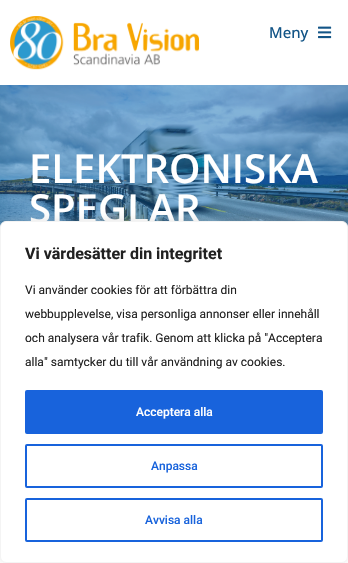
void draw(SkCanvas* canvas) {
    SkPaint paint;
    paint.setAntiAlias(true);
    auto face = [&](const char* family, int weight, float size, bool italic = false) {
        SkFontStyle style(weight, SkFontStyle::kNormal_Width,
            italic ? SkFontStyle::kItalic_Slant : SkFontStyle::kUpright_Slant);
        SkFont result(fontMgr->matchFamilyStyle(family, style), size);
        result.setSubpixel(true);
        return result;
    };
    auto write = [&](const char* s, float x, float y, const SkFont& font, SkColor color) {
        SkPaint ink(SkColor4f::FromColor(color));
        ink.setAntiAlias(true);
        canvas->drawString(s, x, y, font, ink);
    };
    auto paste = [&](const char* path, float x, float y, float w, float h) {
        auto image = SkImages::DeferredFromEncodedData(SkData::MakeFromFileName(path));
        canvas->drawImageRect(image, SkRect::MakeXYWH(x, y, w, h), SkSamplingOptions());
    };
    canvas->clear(SK_ColorWHITE);
    paste("pic1.png", 10, 16, 189, 54);
    auto kFont1 = face("Open Sans", 500, 15);
    write("Meny", 269, 38, kFont1, SkColorSetRGB(19, 85, 135));
    paste("pic2.png", 318, 26, 14, 13);
    paste("pic3.png", 0, 85, 348, 142);
    auto kFont2 = face("Open Sans", 600, 40);
    write("ELEKTRONISKA", 29, 183, kFont2, SK_ColorWHITE);
    write("SPEGLAR", 29, 223, kFont2, SK_ColorWHITE);
    paint.setColor(SkColorSetARGB(77, 172, 171, 171));
    paint.setMaskFilter(SkMaskFilter::MakeBlur(kNormal_SkBlurStyle, 5));
    canvas->drawRoundRect(SkRect::MakeXYWH(0, 220, 348, 342), 6, 6, paint);
    paint.setMaskFilter(nullptr);
    paint.setColor(SK_ColorWHITE);
    canvas->drawRoundRect(SkRect::MakeXYWH(0.5f, 221.5f, 347, 341), 5.5f, 5.5f, paint);
    paint.setStyle(SkPaint::kStroke_Style);
    paint.setStrokeWidth(1);
    paint.setColor(SkColorSetRGB(244, 244, 244));
    canvas->drawRoundRect(SkRect::MakeXYWH(0.5f, 221.5f, 347, 341), 5.5f, 5.5f, paint);
    auto kFont3 = face("Roboto", 700, 16);
    write("Vi värdesätter din integritet", 25, 259, kFont3, SkColorSetRGB(33, 33, 33));
    auto kFont4 = face("Roboto", 400, 12);
    write("Vi använder cookies för att förbättra din", 25, 294, kFont4, SkColorSetRGB(33, 33, 33));
    write("webbupplevelse, visa personliga annonser eller innehåll", 25, 318, kFont4, SkColorSetRGB(33, 33, 33));
    write("och analysera vår trafik. Genom att klicka på \"Acceptera", 25, 342, kFont4, SkColorSetRGB(33, 33, 33));
    write("alla\" samtycker du till vår användning av cookies.", 25, 366, kFont4, SkColorSetRGB(33, 33, 33));
    paint.setStyle(SkPaint::kFill_Style);
    paint.setColor(SkColorSetRGB(24, 99, 220));
    canvas->drawRoundRect(SkRect::MakeXYWH(26, 391, 296, 42), 1, 1, paint);
    paint.setStyle(SkPaint::kStroke_Style);
    paint.setStrokeWidth(2);
    canvas->drawRoundRect(SkRect::MakeXYWH(26, 391, 296, 42), 1, 1, paint);
    auto kFont5 = face("Roboto", 500, 12);
    write("Acceptera alla", 136, 416, kFont5, SK_ColorWHITE);
    canvas->drawRoundRect(SkRect::MakeXYWH(26, 445, 296, 42), 1, 1, paint);
    write("Anpassa", 151, 470, kFont5, SkColorSetRGB(24, 99, 220));
    canvas->drawRoundRect(SkRect::MakeXYWH(26, 499, 296, 42), 1, 1, paint);
    write("Avvisa alla", 145, 524, kFont5, SkColorSetRGB(24, 99, 220));
}
